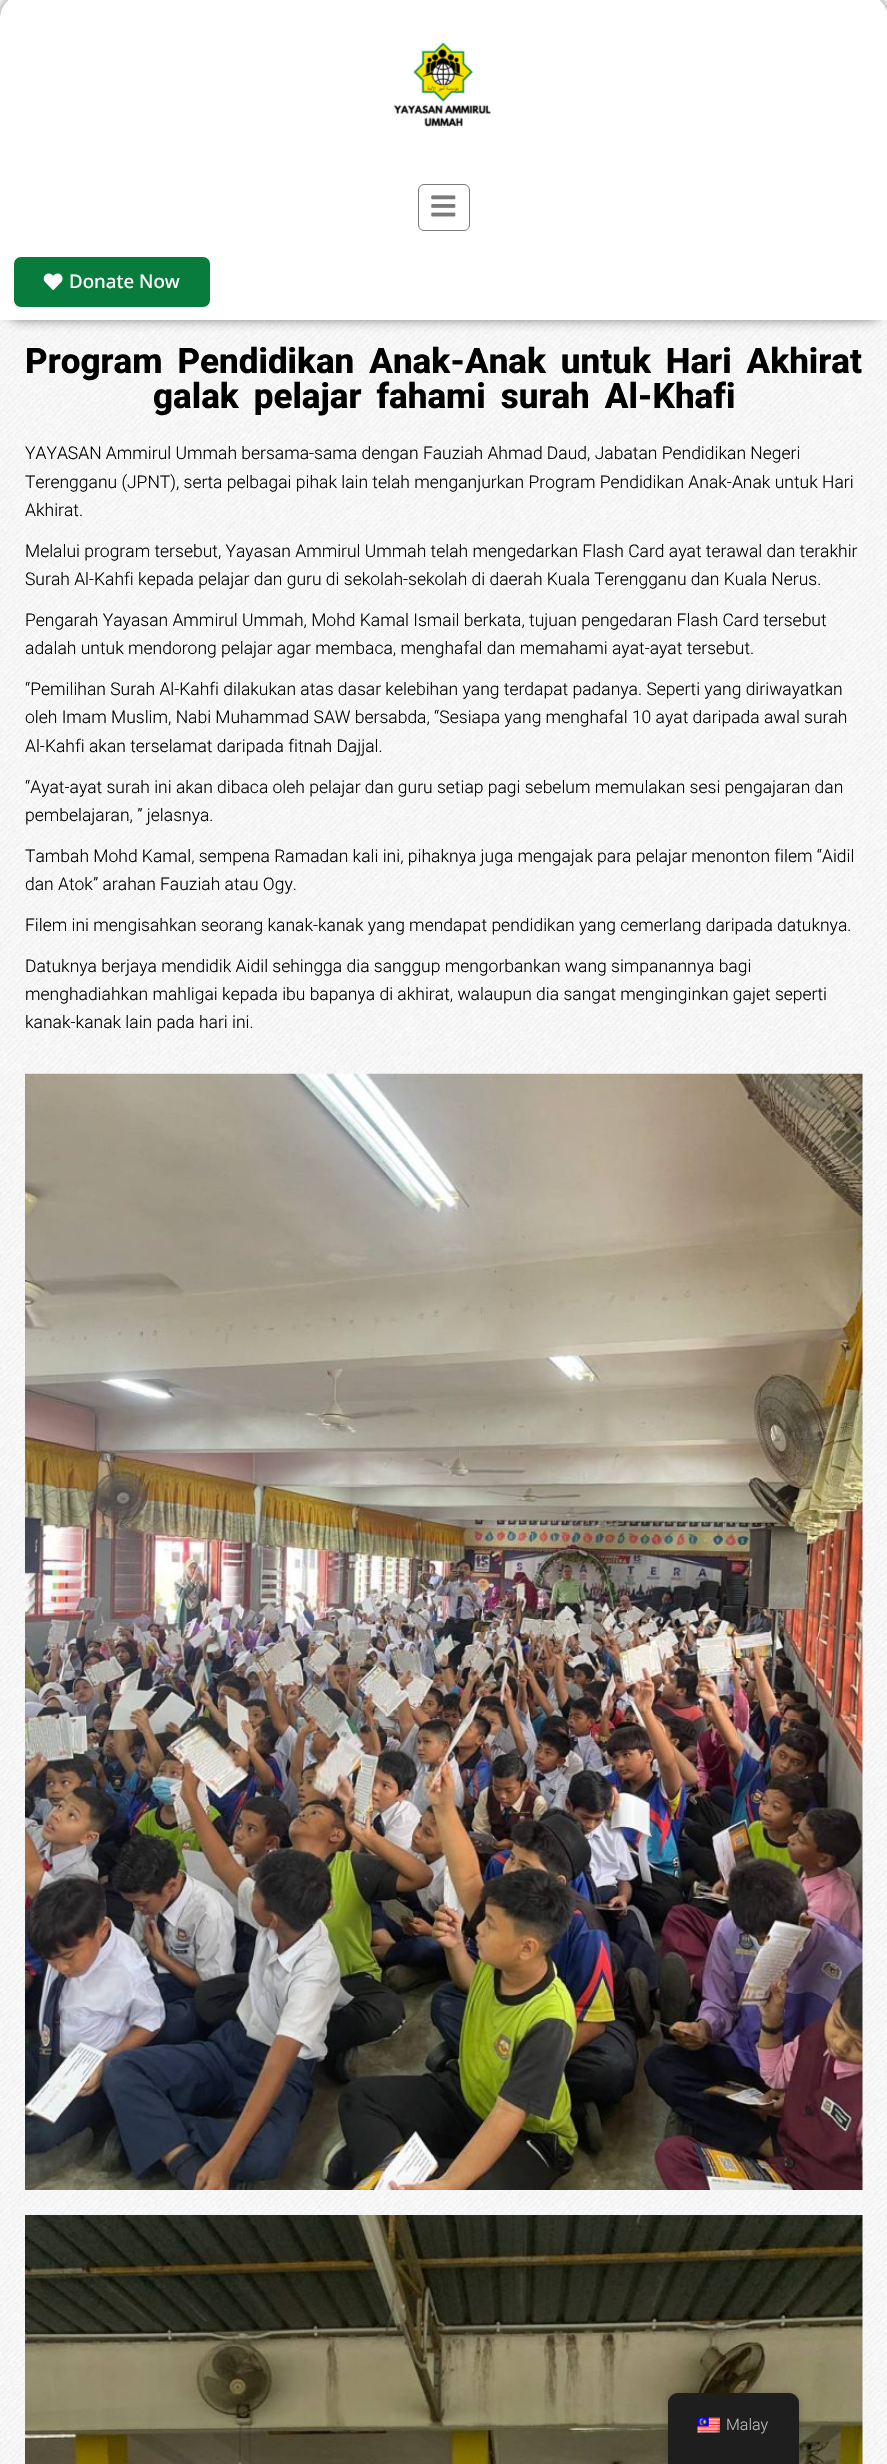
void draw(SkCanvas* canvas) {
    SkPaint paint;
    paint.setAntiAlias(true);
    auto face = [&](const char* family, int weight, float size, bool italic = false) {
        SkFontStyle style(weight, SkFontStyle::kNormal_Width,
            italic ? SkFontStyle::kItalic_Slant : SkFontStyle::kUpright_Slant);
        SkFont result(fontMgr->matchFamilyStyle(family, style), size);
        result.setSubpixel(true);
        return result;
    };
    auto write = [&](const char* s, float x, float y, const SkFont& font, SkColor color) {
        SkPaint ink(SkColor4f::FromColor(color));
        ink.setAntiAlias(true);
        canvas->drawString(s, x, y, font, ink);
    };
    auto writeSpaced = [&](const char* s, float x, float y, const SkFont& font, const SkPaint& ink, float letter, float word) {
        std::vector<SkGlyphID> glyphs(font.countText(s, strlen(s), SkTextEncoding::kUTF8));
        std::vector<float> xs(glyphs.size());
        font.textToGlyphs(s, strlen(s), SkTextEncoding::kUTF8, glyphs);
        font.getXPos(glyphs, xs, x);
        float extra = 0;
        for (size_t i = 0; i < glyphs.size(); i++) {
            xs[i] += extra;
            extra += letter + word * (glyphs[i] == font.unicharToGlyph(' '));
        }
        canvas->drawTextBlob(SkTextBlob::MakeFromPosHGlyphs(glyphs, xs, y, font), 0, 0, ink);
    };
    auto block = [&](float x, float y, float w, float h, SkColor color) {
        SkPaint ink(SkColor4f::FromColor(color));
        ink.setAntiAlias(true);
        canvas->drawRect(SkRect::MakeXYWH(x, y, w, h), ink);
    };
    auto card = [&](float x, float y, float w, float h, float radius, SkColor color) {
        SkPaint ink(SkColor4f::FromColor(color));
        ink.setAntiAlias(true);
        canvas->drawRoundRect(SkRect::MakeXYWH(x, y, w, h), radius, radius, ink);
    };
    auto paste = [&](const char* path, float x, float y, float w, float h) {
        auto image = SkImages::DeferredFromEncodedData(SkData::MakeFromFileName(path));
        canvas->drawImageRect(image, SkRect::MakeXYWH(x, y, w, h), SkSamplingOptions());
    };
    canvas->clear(SK_ColorWHITE);
    paste("pic1.png", 0, 320, 887, 2144);
    block(0, 13, 1, 1, SkColorSetRGB(248, 229, 13));
    paint.setColor(SkColorSetARGB(128, 0, 0, 0));
    paint.setMaskFilter(SkMaskFilter::MakeBlur(kNormal_SkBlurStyle, 6));
    canvas->drawRoundRect(SkRect::MakeXYWH(0, -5, 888, 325), 23, 23, paint);
    paint.setMaskFilter(nullptr);
    card(0, -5, 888, 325, 23, SK_ColorWHITE);
    paste("pic2.png", 393, 42, 98, 85);
    paint.setStyle(SkPaint::kStroke_Style);
    paint.setStrokeWidth(1);
    paint.setColor(SkColorSetRGB(122, 122, 122));
    canvas->drawRoundRect(SkRect::MakeXYWH(418.5f, 184.5f, 51, 46), 5.5f, 5.5f, paint);
    paste("pic3.png", 431, 195, 25, 22);
    block(0, 298, 887, 22, SK_ColorWHITE);
    paint.setStyle(SkPaint::kFill_Style);
    paint.setColor(SkColorSetRGB(8, 124, 60));
    canvas->drawRoundRect(SkRect::MakeXYWH(13.5f, 256.5f, 197, 51), 7.5f, 7.5f, paint);
    paint.setStyle(SkPaint::kStroke_Style);
    paint.setColor(SK_ColorWHITE);
    canvas->drawRoundRect(SkRect::MakeXYWH(13.5f, 256.5f, 197, 51), 7.5f, 7.5f, paint);
    paste("pic4.png", 43, 273, 20, 17);
    auto kFont1 = face("Open Sans", 500, 18.75f);
    write("Donate Now", 69, 288, kFont1, SK_ColorWHITE);
    auto kFont2 = face("Roboto", 800, 35);
    paint.setStyle(SkPaint::kFill_Style);
    paint.setColor(SK_ColorBLACK);
    writeSpaced("Program Pendidikan Anak-Anak untuk Hari Akhirat", 25, 373, kFont2, paint, 0, 6.25f);
    writeSpaced("galak pelajar fahami surah Al-Khafi", 153, 408, kFont2, paint, 0, 6.25f);
    auto kFont3 = face("Roboto", 300, 17.5f);
    write("YAYASAN Ammirul Ummah bersama-sama dengan Fauziah Ahmad Daud, Jabatan Pendidikan Negeri", 25, 459, kFont3, SK_ColorBLACK);
    write("Terengganu (JPNT), serta pelbagai pihak lain telah menganjurkan Program Pendidikan Anak-Anak untuk Hari", 25, 488, kFont3, SK_ColorBLACK);
    write("Akhirat.", 25, 516, kFont3, SK_ColorBLACK);
    write("Melalui program tersebut, Yayasan Ammirul Ummah telah mengedarkan Flash Card ayat terawal dan terakhir", 25, 557, kFont3, SK_ColorBLACK);
    write("Surah Al-Kahfi kepada pelajar dan guru di sekolah-sekolah di daerah Kuala Terengganu dan Kuala Nerus.", 25, 585, kFont3, SK_ColorBLACK);
    write("Pengarah Yayasan Ammirul Ummah, Mohd Kamal Ismail berkata, tujuan pengedaran Flash Card tersebut", 25, 626, kFont3, SK_ColorBLACK);
    write("adalah untuk mendorong pelajar agar membaca, menghafal dan memahami ayat-ayat tersebut.", 25, 654, kFont3, SK_ColorBLACK);
    write("“Pemilihan Surah Al-Kahfi dilakukan atas dasar kelebihan yang terdapat padanya. Seperti yang diriwayatkan", 25, 695, kFont3, SK_ColorBLACK);
    write("oleh Imam Muslim, Nabi Muhammad SAW bersabda, “Sesiapa yang menghafal 10 ayat daripada awal surah", 25, 723, kFont3, SK_ColorBLACK);
    write("Al-Kahfi akan terselamat daripada fitnah Dajjal.", 25, 752, kFont3, SK_ColorBLACK);
    write("“Ayat-ayat surah ini akan dibaca oleh pelajar dan guru setiap pagi sebelum memulakan sesi pengajaran dan", 25, 793, kFont3, SK_ColorBLACK);
    write("pembelajaran, ” jelasnya.", 25, 821, kFont3, SK_ColorBLACK);
    write("Tambah Mohd Kamal, sempena Ramadan kali ini, pihaknya juga mengajak para pelajar menonton filem “Aidil", 25, 862, kFont3, SK_ColorBLACK);
    write("dan Atok” arahan Fauziah atau Ogy.", 25, 890, kFont3, SK_ColorBLACK);
    write("Filem ini mengisahkan seorang kanak-kanak yang mendapat pendidikan yang cemerlang daripada datuknya.", 25, 931, kFont3, SK_ColorBLACK);
    write("Datuknya berjaya mendidik Aidil sehingga dia sanggup mengorbankan wang simpanannya bagi", 25, 972, kFont3, SK_ColorBLACK);
    write("menghadiahkan mahligai kepada ibu bapanya di akhirat, walaupun dia sangat menginginkan gajet seperti", 25, 1000, kFont3, SK_ColorBLACK);
    write("kanak-kanak lain pada hari ini.", 25, 1028, kFont3, SK_ColorBLACK);
    paste("pic5.png", 25, 1073, 838, 1117);
    paste("pic6.png", 25, 2215, 838, 249);
    paint.setColor(SkColorSetARGB(64, 0, 0, 0));
    paint.setMaskFilter(SkMaskFilter::MakeBlur(kNormal_SkBlurStyle, 5));
    canvas->drawRoundRect(SkRect::MakeXYWH(668, 2393, 131, 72), 10, 10, paint);
    paint.setMaskFilter(nullptr);
    paint.setColor(SkColorSetRGB(30, 30, 30));
    canvas->drawPath(SkPathBuilder().moveTo(678, 2393).lineTo(789, 2393).cubicTo(794.5f, 2393, 799, 2397.5f, 799, 2403).lineTo(799, 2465).lineTo(668, 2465).lineTo(668, 2403).cubicTo(668, 2397.5f, 672.5f, 2393, 678, 2393).close().detach(), paint);
    paste("pic7.png", 697, 2417, 23, 16);
    auto kFont4 = face("Roboto", 300, 16);
    write("Malay", 726, 2430, kFont4, SkColorSetRGB(189, 189, 189));
}
